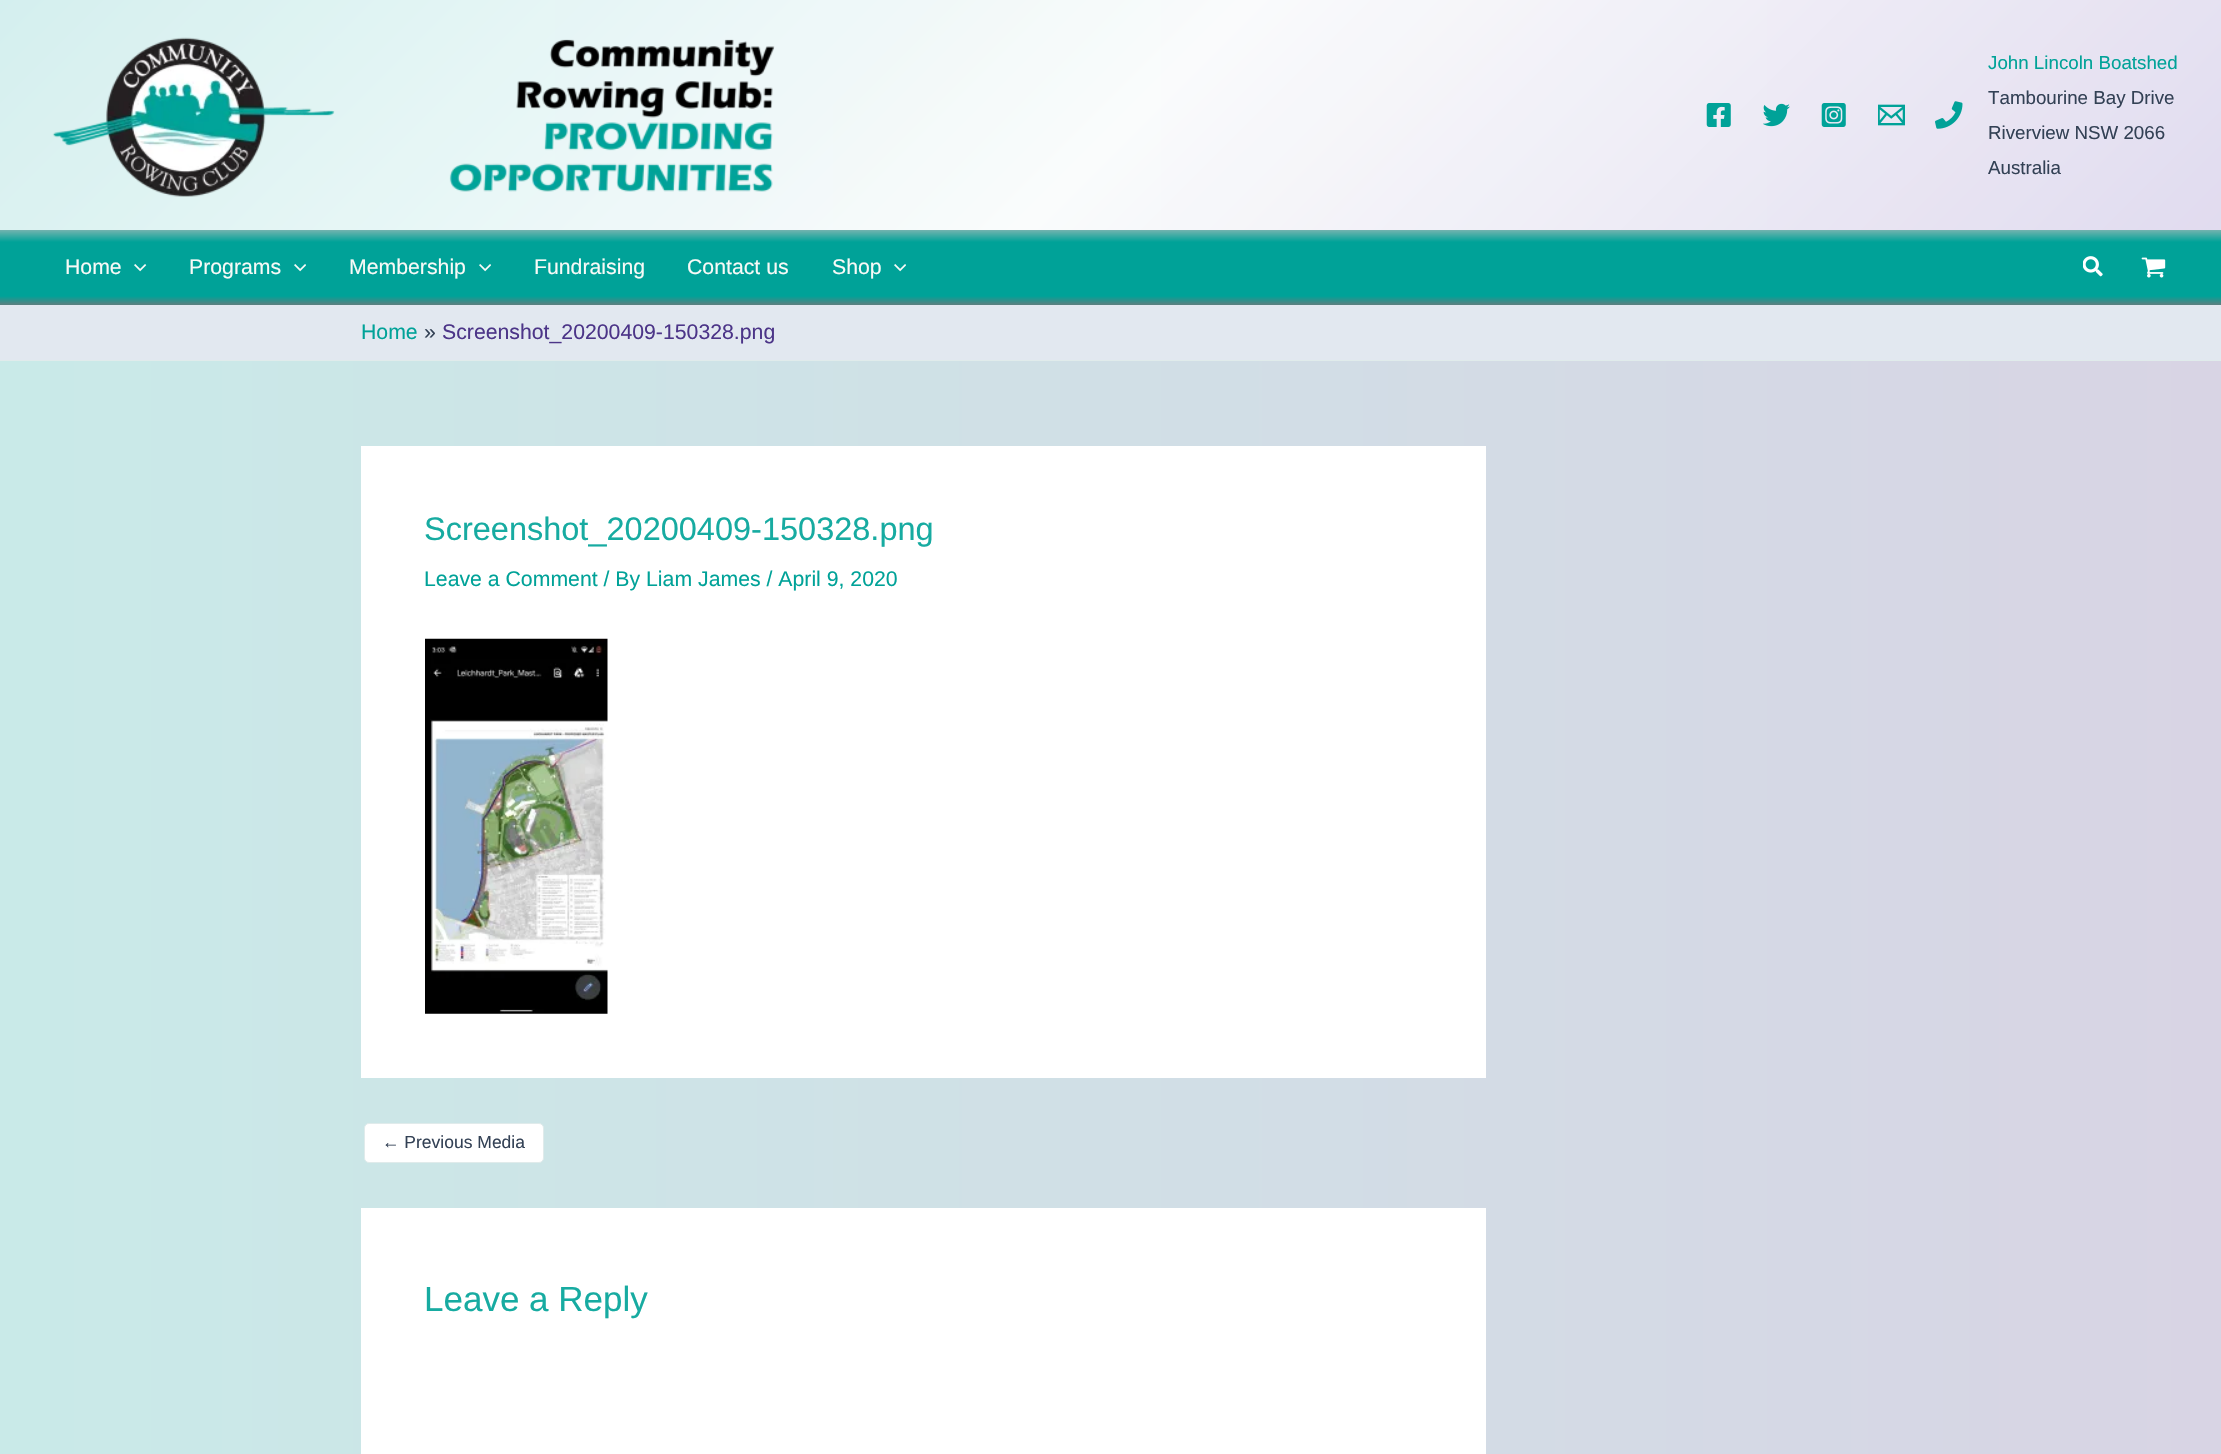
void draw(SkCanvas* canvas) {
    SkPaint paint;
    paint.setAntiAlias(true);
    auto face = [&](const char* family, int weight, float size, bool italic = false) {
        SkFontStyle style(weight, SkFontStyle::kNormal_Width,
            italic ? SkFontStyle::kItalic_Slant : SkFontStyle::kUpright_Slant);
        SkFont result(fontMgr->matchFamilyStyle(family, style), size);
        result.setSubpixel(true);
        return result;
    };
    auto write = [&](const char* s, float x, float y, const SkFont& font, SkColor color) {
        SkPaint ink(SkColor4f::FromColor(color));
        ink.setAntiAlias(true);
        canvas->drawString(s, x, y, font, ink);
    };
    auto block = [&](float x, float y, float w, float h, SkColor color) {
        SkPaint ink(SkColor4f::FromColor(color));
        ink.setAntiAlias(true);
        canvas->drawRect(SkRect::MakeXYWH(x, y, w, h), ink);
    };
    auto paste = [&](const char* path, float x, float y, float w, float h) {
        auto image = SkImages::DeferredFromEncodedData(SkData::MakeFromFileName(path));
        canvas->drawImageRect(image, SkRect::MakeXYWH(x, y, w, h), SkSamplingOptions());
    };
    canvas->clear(SK_ColorWHITE);
    {
        const SkColor colors[] = {SkColorSetRGB(201, 234, 232), SkColorSetRGB(216, 212, 228)};
        const float stops[] = {0, 1};
        const SkPoint ends[] = {{0, 728}, {2221, 728}};
        paint.setShader(SkGradientShader::MakeLinear(ends, colors, stops, 2, SkTileMode::kClamp));
        paint.setAlpha(255);
    }
    canvas->drawRect(SkRect::MakeXYWH(0, 0, 2221, 1454), paint);
    {
        const SkColor colors[] = {SkColorSetARGB(230, 213, 240, 239), SkColorSetARGB(224, 255, 255, 255), SkColorSetARGB(222, 226, 220, 240)};
        const float stops[] = {0, 0.51f, 1};
        const SkPoint ends[] = {{498, -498}, {1723, 728}};
        paint.setShader(SkGradientShader::MakeLinear(ends, colors, stops, 3, SkTileMode::kClamp));
        paint.setAlpha(255);
    }
    canvas->drawRect(SkRect::MakeXYWH(0, 0, 2221, 230), paint);
    paste("pic1.png", 52, 37, 723, 160);
    paste("pic2.png", 1706, 103, 25, 24);
    paste("pic3.png", 1763, 103, 27, 24);
    paste("pic4.png", 1821, 103, 25, 24);
    paste("pic5.png", 1878, 104, 27, 22);
    paste("pic6.png", 1935, 101, 28, 28);
    auto kFont1 = face("Liberation Sans", 400, 18.75f);
    write("John Lincoln Boatshed", 1988, 69, kFont1, SkColorSetRGB(0, 162, 152));
    write("Tambourine Bay Drive", 1988, 104, kFont1, SkColorSetRGB(51, 65, 85));
    write("Riverview NSW 2066", 1988, 139, kFont1, SkColorSetRGB(51, 65, 85));
    write("Australia", 1988, 174, kFont1, SkColorSetRGB(51, 65, 85));
    {
        const SkColor colors[] = {SkColorSetRGB(88, 129, 129), SkColorSetRGB(0, 162, 152), SkColorSetRGB(0, 162, 152), SkColorSetRGB(116, 179, 175)};
        const float stops[] = {0.01f, 0.12f, 0.84f, 1};
        const SkPoint ends[] = {{1111, 305}, {1111, 230}};
        paint.setShader(SkGradientShader::MakeLinear(ends, colors, stops, 4, SkTileMode::kClamp));
        paint.setAlpha(255);
    }
    canvas->drawRect(SkRect::MakeXYWH(0, 230, 2221, 75), paint);
    auto kFont2 = face("Liberation Sans", 400, 21.25f);
    write("Home", 65, 274, kFont2, SkColorSetRGB(248, 250, 247));
    paste("pic7.png", 134, 264, 13, 8);
    write("Programs", 189, 274, kFont2, SkColorSetRGB(248, 250, 247));
    paste("pic8.png", 294, 264, 12, 8);
    write("Membership", 349, 274, kFont2, SkColorSetRGB(248, 250, 247));
    paste("pic8.png", 479, 264, 12, 8);
    write("Fundraising", 534, 274, kFont2, SkColorSetRGB(248, 250, 247));
    write("Contact us", 687, 274, kFont2, SkColorSetRGB(248, 250, 247));
    write("Shop", 832, 274, kFont2, SkColorSetRGB(248, 250, 247));
    paste("pic8.png", 894, 264, 12, 8);
    paste("pic9.png", 2083, 256, 20, 21);
    paste("pic10.png", 2141, 257, 25, 21);
    block(0, 305, 2221, 55, SkColorSetRGB(226, 232, 240));
    block(0, 360, 2221, 1, SkColorSetRGB(224, 235, 235));
    write("Home", 361, 339, kFont2, SkColorSetRGB(0, 162, 152));
    write("»", 424, 339, kFont2, SkColorSetRGB(51, 65, 85));
    write("Screenshot_20200409-150328.png", 442, 339, kFont2, SkColorSetRGB(76, 53, 136));
    block(361, 446, 1125, 632, SK_ColorWHITE);
    auto kFont3 = face("Liberation Sans", 400, 32.5f);
    write("Screenshot_20200409-150328.png", 424, 540, kFont3, SkColorSetRGB(23, 171, 161));
    write("Leave a Comment / By Liam James / April 9, 2020", 424, 586, kFont2, SkColorSetRGB(0, 162, 152));
    paste("pic11.png", 425, 638, 183, 376);
    paint.setShader(nullptr);
    paint.setColor(SK_ColorWHITE);
    canvas->drawRoundRect(SkRect::MakeXYWH(364.5f, 1123.5f, 179, 39), 4.5f, 4.5f, paint);
    paint.setStyle(SkPaint::kStroke_Style);
    paint.setStrokeWidth(1);
    paint.setColor(SkColorSetRGB(224, 235, 235));
    canvas->drawRoundRect(SkRect::MakeXYWH(364.5f, 1123.5f, 179, 39), 4.5f, 4.5f, paint);
    auto kFont4 = face("Liberation Sans", 400, 17.5f);
    write("← Previous Media", 382, 1148, kFont4, SkColorSetRGB(51, 65, 85));
    block(361, 1208, 1125, 246, SK_ColorWHITE);
    auto kFont5 = face("Liberation Sans", 400, 35);
    write("Leave a Reply", 424, 1311, kFont5, SkColorSetRGB(23, 171, 161));
}
